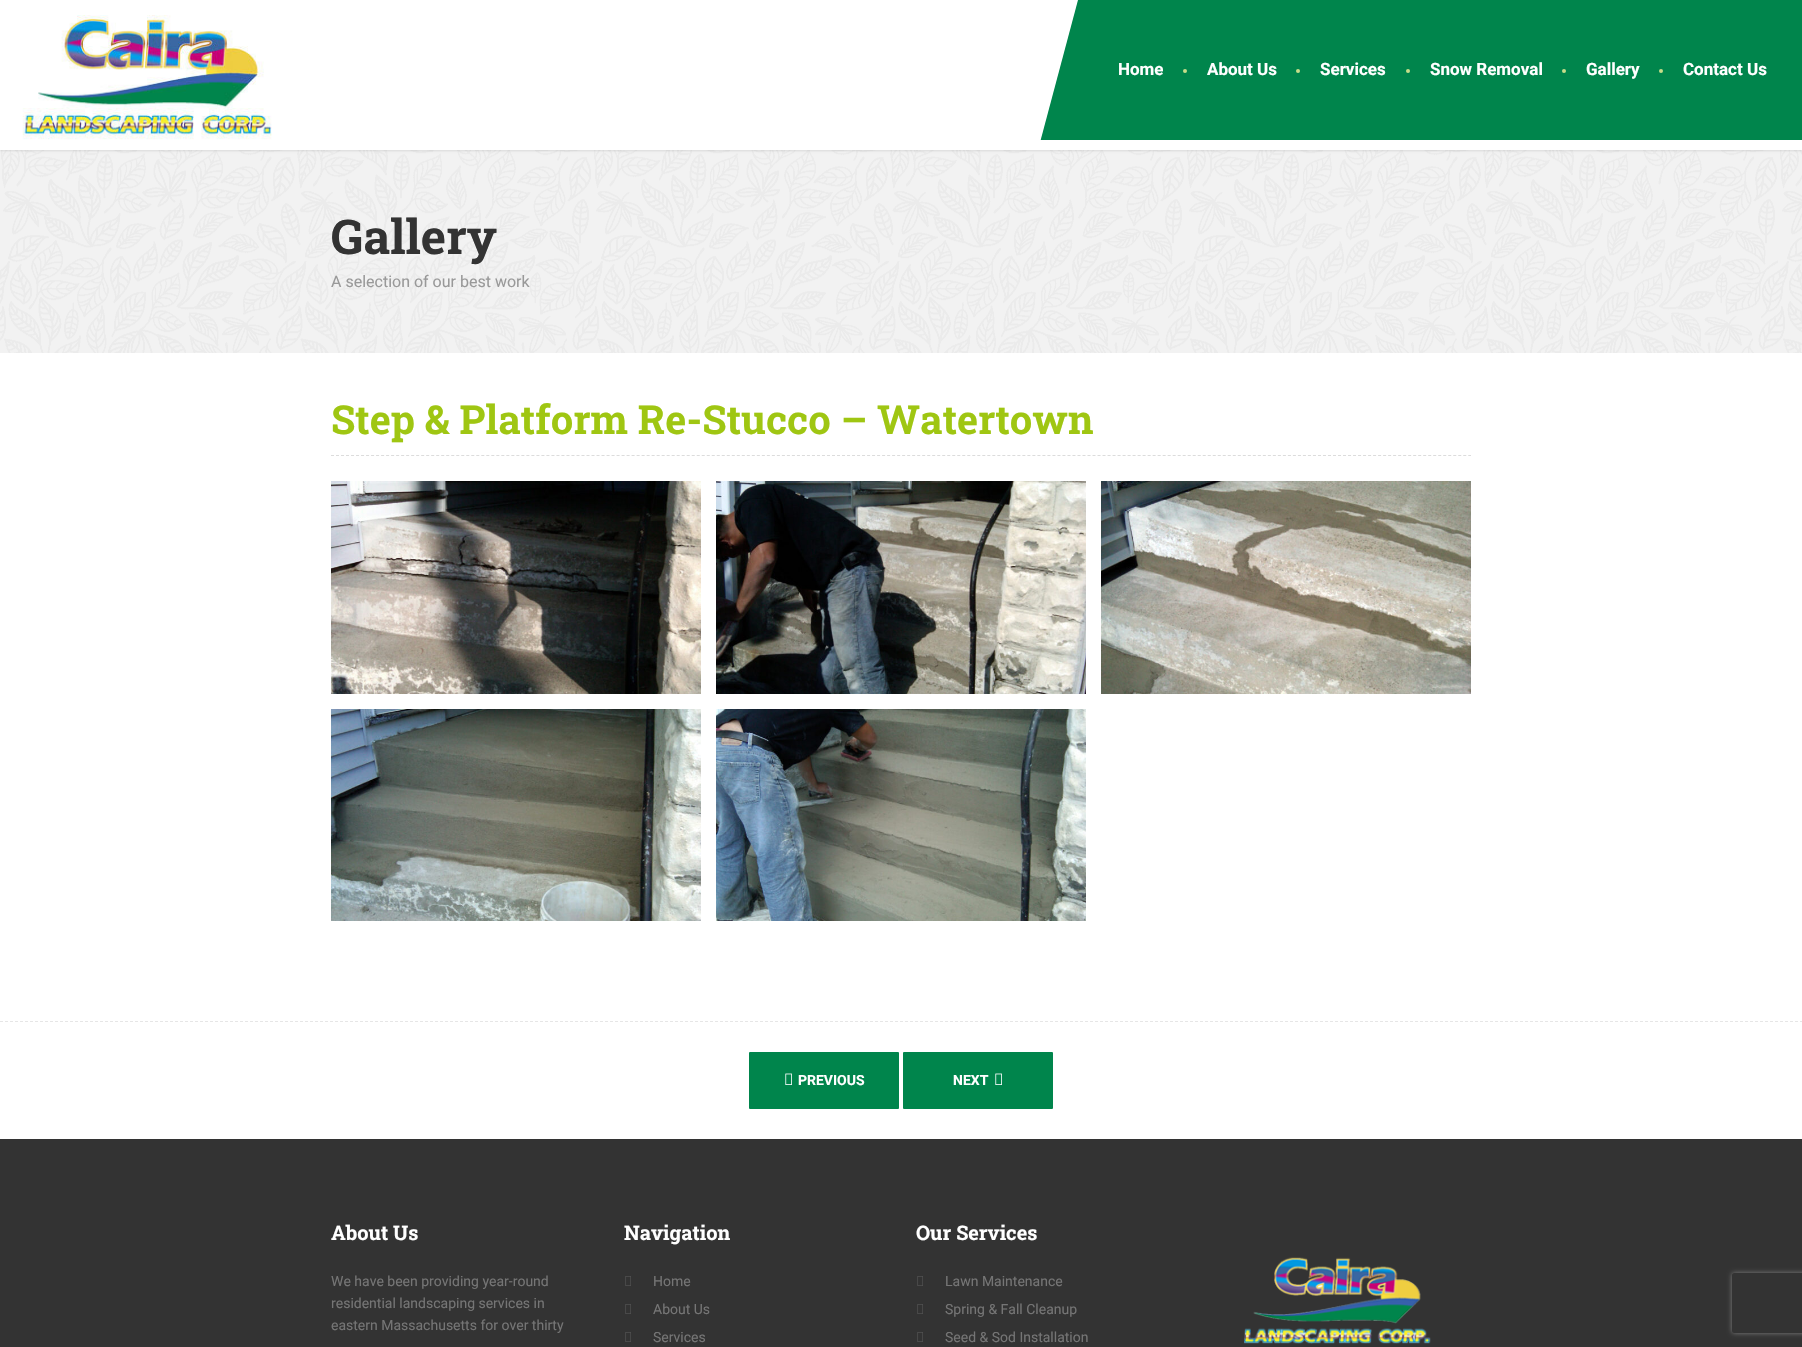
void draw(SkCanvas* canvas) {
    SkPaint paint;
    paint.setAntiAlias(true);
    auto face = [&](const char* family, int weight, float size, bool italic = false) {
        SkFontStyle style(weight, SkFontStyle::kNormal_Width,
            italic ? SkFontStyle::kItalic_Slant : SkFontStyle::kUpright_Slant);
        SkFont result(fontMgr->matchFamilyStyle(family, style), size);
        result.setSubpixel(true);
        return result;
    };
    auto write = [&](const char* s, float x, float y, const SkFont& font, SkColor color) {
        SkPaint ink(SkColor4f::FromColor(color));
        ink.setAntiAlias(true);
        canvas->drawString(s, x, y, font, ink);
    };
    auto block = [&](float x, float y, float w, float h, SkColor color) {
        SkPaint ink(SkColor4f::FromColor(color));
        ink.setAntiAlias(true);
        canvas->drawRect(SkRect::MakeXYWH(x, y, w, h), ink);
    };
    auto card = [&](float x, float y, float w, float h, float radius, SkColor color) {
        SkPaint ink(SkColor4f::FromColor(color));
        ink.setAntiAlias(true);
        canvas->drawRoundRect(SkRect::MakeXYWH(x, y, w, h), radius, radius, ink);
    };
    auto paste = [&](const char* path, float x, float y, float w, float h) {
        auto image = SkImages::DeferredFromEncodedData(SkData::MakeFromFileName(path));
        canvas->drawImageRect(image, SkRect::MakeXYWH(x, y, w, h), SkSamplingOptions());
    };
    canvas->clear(SK_ColorWHITE);
    paste("pic2.png", 0, 150, 1802, 203);
    paint.setColor(SkColorSetARGB(26, 0, 0, 0));
    paint.setMaskFilter(SkMaskFilter::MakeBlur(kNormal_SkBlurStyle, 1));
    canvas->drawRect(SkRect::MakeXYWH(0, 1, 1802, 150), paint);
    paint.setMaskFilter(nullptr);
    block(0, 0, 1802, 150, SK_ColorWHITE);
    paste("pic1.png", 22, 15, 250, 125);
    block(1040, 0, 762, 140, SkColorSetRGB(0, 133, 76));
    paint.setColor(SK_ColorWHITE);
    canvas->drawPath(SkPathBuilder().moveTo(1038, 150).lineTo(1038, 0).lineTo(1078, 0).close().detach(), paint);
    auto kFont1 = face("Roboto", 700, 17);
    write("Home", 1118, 75, kFont1, SK_ColorWHITE);
    paint.setColor(SkColorSetRGB(200, 221, 137));
    canvas->drawCircle(1185, 71, 2, paint);
    write("About Us", 1207, 75, kFont1, SK_ColorWHITE);
    canvas->drawCircle(1298, 71, 2, paint);
    write("Services", 1320, 75, kFont1, SK_ColorWHITE);
    canvas->drawCircle(1408, 71, 2, paint);
    write("Snow Removal", 1430, 75, kFont1, SK_ColorWHITE);
    canvas->drawCircle(1564, 71, 2, paint);
    write("Gallery", 1586, 75, kFont1, SK_ColorWHITE);
    canvas->drawCircle(1661, 71, 2, paint);
    write("Contact Us", 1683, 75, kFont1, SK_ColorWHITE);
    auto kFont2 = face("Roboto Slab", 700, 48);
    write("Gallery", 331, 254, kFont2, SkColorSetRGB(51, 51, 51));
    auto kFont3 = face("Roboto", 400, 16);
    write("A selection of our best work", 331, 287, kFont3, SkColorSetRGB(153, 153, 153));
    paint.setStyle(SkPaint::kStroke_Style);
    paint.setStrokeWidth(1);
    paint.setColor(SkColorSetRGB(220, 220, 220));
    paint.setPathEffect(SkDashPathEffect::Make({{3, 2.01f}}, 0));
    canvas->drawPath(SkPathBuilder().moveTo(331, 455.5f).lineTo(1471, 455.5f).detach(), paint);
    paint.setPathEffect(nullptr);
    auto kFont4 = face("Roboto Slab", 700, 40);
    write("Step & Platform Re-Stucco – Watertown", 331, 434, kFont4, SkColorSetRGB(159, 198, 18));
    paste("pic3.png", 331, 481, 370, 213);
    paste("pic4.png", 716, 481, 370, 213);
    paste("pic5.png", 1101, 481, 370, 213);
    paste("pic6.png", 331, 709, 370, 212);
    paste("pic7.png", 716, 709, 370, 212);
    paint.setColor(SkColorSetRGB(230, 230, 230));
    paint.setPathEffect(SkDashPathEffect::Make({{3, 2}}, 0));
    canvas->drawPath(SkPathBuilder().moveTo(0, 1021.5f).lineTo(1802, 1021.5f).detach(), paint);
    paint.setPathEffect(nullptr);
    card(749, 1052, 150, 57, 1, SkColorSetRGB(0, 133, 76));
    paste("pic8.png", 785, 1073, 7, 12);
    auto kFont5 = face("Roboto", 700, 14);
    write("PREVIOUS", 798, 1085, kFont5, SK_ColorWHITE);
    card(903, 1052, 150, 57, 1, SkColorSetRGB(0, 133, 76));
    write("NEXT", 953, 1085, kFont5, SK_ColorWHITE);
    paste("pic8.png", 995, 1073, 7, 12);
    block(0, 1139, 1802, 208, SkColorSetRGB(51, 51, 51));
    auto kFont6 = face("Roboto Slab", 700, 20);
    write("About Us", 331, 1240, kFont6, SK_ColorWHITE);
    auto kFont7 = face("Roboto", 400, 14);
    write("We have been providing year-round", 331, 1286, kFont7, SkColorSetRGB(117, 117, 117));
    write("residential landscaping services in", 331, 1308, kFont7, SkColorSetRGB(117, 117, 117));
    write("eastern Massachusetts for over thirty", 331, 1330, kFont7, SkColorSetRGB(117, 117, 117));
    write("Navigation", 624, 1240, kFont6, SK_ColorWHITE);
    paste("pic9.png", 625, 1276, 6, 10);
    write("Home", 653, 1286, kFont7, SkColorSetRGB(117, 117, 117));
    paste("pic9.png", 625, 1304, 6, 10);
    write("About Us", 653, 1314, kFont7, SkColorSetRGB(117, 117, 117));
    paste("pic9.png", 625, 1332, 6, 10);
    write("Services", 653, 1342, kFont7, SkColorSetRGB(117, 117, 117));
    write("Our Services", 916, 1240, kFont6, SK_ColorWHITE);
    paste("pic9.png", 917, 1276, 6, 10);
    write("Lawn Maintenance", 945, 1286, kFont7, SkColorSetRGB(117, 117, 117));
    paste("pic9.png", 917, 1304, 6, 10);
    write("Spring & Fall Cleanup", 945, 1314, kFont7, SkColorSetRGB(117, 117, 117));
    paste("pic9.png", 917, 1332, 6, 10);
    write("Seed & Sod Installation", 945, 1342, kFont7, SkColorSetRGB(117, 117, 117));
    paste("pic10.png", 1244, 1257, 187, 87);
    canvas->save();
    canvas->clipPath(SkPathBuilder(SkPathFillType::kEvenOdd).moveTo(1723, 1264).lineTo(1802, 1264).lineTo(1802, 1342).lineTo(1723, 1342).close().moveTo(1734, 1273).lineTo(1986, 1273).cubicTo(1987, 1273, 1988, 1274, 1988, 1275).lineTo(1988, 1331).cubicTo(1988, 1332, 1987, 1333, 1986, 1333).lineTo(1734, 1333).cubicTo(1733, 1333, 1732, 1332, 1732, 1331).lineTo(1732, 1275).cubicTo(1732, 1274, 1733, 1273, 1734, 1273).close().detach(), true);
    paint.setStyle(SkPaint::kFill_Style);
    paint.setColor(SkColorSetRGB(128, 128, 128));
    paint.setMaskFilter(SkMaskFilter::MakeBlur(kNormal_SkBlurStyle, 2.5f));
    canvas->drawRoundRect(SkRect::MakeXYWH(1732, 1273, 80, 60), 2, 2, paint);
    paint.setMaskFilter(nullptr);
    canvas->restore();
}
